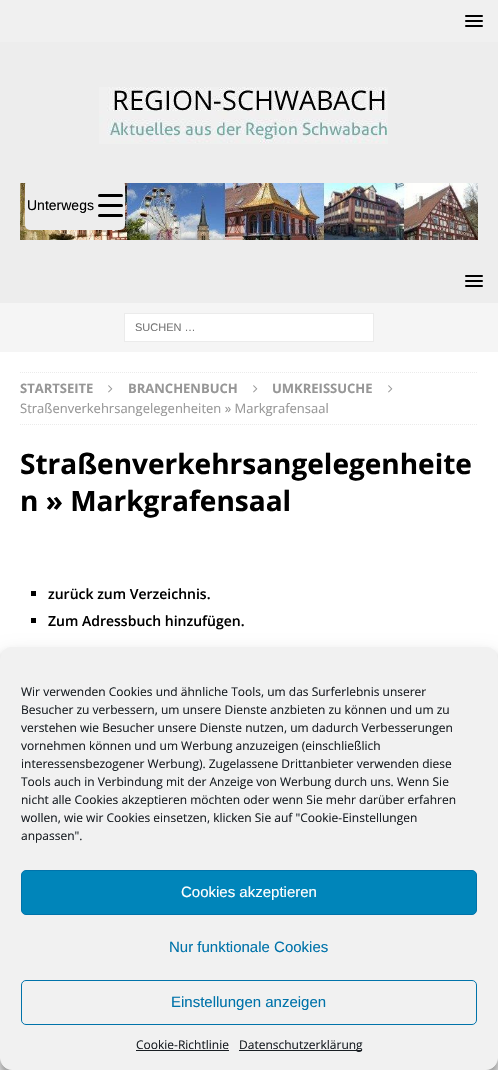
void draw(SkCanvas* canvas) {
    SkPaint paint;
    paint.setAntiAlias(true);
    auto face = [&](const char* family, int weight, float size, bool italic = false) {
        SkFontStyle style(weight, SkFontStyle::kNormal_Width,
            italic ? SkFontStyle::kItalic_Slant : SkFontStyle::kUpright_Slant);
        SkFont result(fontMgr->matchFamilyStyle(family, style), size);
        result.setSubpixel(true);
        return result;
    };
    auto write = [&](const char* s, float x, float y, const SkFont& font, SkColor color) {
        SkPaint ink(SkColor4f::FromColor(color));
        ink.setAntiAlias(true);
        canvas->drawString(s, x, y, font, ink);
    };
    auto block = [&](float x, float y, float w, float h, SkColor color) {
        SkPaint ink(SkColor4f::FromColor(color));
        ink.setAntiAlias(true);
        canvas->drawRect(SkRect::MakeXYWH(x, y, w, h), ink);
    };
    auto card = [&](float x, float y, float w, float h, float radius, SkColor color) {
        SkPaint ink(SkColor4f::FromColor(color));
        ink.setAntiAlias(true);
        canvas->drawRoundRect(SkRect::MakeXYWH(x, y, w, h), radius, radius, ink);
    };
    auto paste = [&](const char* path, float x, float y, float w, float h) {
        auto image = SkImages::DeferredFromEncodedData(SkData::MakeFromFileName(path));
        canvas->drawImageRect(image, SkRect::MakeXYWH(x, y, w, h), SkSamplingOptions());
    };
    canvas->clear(SkColorSetRGB(240, 240, 240));
    block(0, 42, 498, 261, SkColorSetRGB(237, 237, 237));
    paste("pic2.png", 20, 183, 458, 57);
    card(25, 180, 100, 50, 5, SkColorSetRGB(237, 237, 237));
    auto kFont1 = face("Liberation Sans", 400, 14);
    write("Unterwegs", 27, 210, kFont1, SK_ColorBLACK);
    card(98, 204, 25, 3, 1.5f, SK_ColorBLACK);
    card(98, 194, 25, 3, 1.5f, SK_ColorBLACK);
    card(98, 214, 25, 3, 1.5f, SK_ColorBLACK);
    card(465, 15, 18, 2, 1, SK_ColorBLACK);
    card(465, 20, 18, 2, 1, SK_ColorBLACK);
    card(465, 25, 18, 2, 1, SK_ColorBLACK);
    paste("pic1.png", 99, 87, 289, 57);
    card(465, 275, 18, 2, 1, SK_ColorBLACK);
    card(465, 280, 18, 2, 1, SK_ColorBLACK);
    card(465, 285, 18, 2, 1, SK_ColorBLACK);
    block(0, 303, 498, 49, SkColorSetRGB(245, 245, 245));
    paint.setColor(SK_ColorWHITE);
    canvas->drawRect(SkRect::MakeXYWH(124.5f, 313.5f, 249, 28), paint);
    paint.setStyle(SkPaint::kStroke_Style);
    paint.setStrokeWidth(1);
    paint.setColor(SkColorSetRGB(235, 235, 235));
    canvas->drawRect(SkRect::MakeXYWH(124.5f, 313.5f, 249, 28), paint);
    auto kFont2 = face("Liberation Sans", 400, 11);
    write("SUCHEN …", 135, 331, kFont2, SkColorSetRGB(117, 117, 117));
    block(0, 352, 498, 307, SK_ColorWHITE);
    paint.setPathEffect(SkDashPathEffect::Make({{1, 1}}, 0));
    canvas->drawPath(SkPathBuilder().moveTo(20, 372.5f).lineTo(478, 372.5f).detach(), paint);
    paint.setPathEffect(nullptr);
    paint.setPathEffect(SkDashPathEffect::Make({{1, 1}}, 0));
    canvas->drawPath(SkPathBuilder().moveTo(20, 424.5f).lineTo(478, 424.5f).detach(), paint);
    paint.setPathEffect(nullptr);
    auto kFont3 = face("Open Sans", 700, 13);
    write("STARTSEITE", 20, 393, kFont3, SkColorSetRGB(151, 151, 151));
    paste("pic3.png", 108, 385, 5, 8);
    write("BRANCHENBUCH", 128, 393, kFont3, SkColorSetRGB(151, 151, 151));
    paste("pic3.png", 253, 385, 5, 8);
    write("UMKREISSUCHE", 272, 393, kFont3, SkColorSetRGB(151, 151, 151));
    paste("pic3.png", 388, 385, 5, 8);
    auto kFont4 = face("Open Sans", 400, 13);
    write("Straßenverkehrsangelegenheiten » Markgrafensaal", 20, 413, kFont4, SkColorSetRGB(151, 151, 151));
    auto kFont5 = face("Open Sans", 700, 28);
    write("Straßenverkehrsangelegenheite", 20, 474, kFont5, SK_ColorBLACK);
    write("n » Markgrafensaal", 20, 511, kFont5, SK_ColorBLACK);
    block(31, 591, 5, 5, SK_ColorBLACK);
    auto kFont6 = face("Open Sans", 600, 14);
    write("zurück zum Verzeichnis.", 48, 599, kFont6, SK_ColorBLACK);
    block(31, 618, 5, 5, SK_ColorBLACK);
    write("Zum Adressbuch hinzufügen.", 48, 626, kFont6, SK_ColorBLACK);
    block(0, 1058, 498, 12, SkColorSetRGB(237, 237, 237));
    paint.setStyle(SkPaint::kFill_Style);
    paint.setColor(SkColorSetARGB(59, 0, 0, 0));
    paint.setMaskFilter(SkMaskFilter::MakeBlur(kNormal_SkBlurStyle, 3));
    canvas->drawRoundRect(SkRect::MakeXYWH(0, 653, 498, 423), 12, 12, paint);
    paint.setMaskFilter(nullptr);
    paint.setColor(SkColorSetARGB(48, 0, 0, 0));
    paint.setMaskFilter(SkMaskFilter::MakeBlur(kNormal_SkBlurStyle, 10));
    canvas->drawRoundRect(SkRect::MakeXYWH(0, 657, 498, 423), 12, 12, paint);
    paint.setMaskFilter(nullptr);
    paint.setColor(SkColorSetRGB(241, 241, 241));
    canvas->drawRoundRect(SkRect::MakeXYWH(0.5f, 647.5f, 497, 422), 11.5f, 11.5f, paint);
    paint.setStyle(SkPaint::kStroke_Style);
    canvas->drawRoundRect(SkRect::MakeXYWH(0.5f, 647.5f, 497, 422), 11.5f, 11.5f, paint);
    auto kFont7 = face("Open Sans", 400, 12);
    write("Wir verwenden Cookies und ähnliche Tools, um das Surferlebnis unserer", 21, 696, kFont7, SkColorSetRGB(25, 30, 35));
    write("Besucher zu verbessern, um unsere Dienste anzbieten zu können und um zu", 21, 714, kFont7, SkColorSetRGB(25, 30, 35));
    write("verstehen wie Besucher unsere Dienste nutzen, um dadurch Verbesserungen", 21, 732, kFont7, SkColorSetRGB(25, 30, 35));
    write("vornehmen können und um Werbung anzuzeigen (einschließlich", 21, 750, kFont7, SkColorSetRGB(25, 30, 35));
    write("interessensbezogener Werbung). Zugelassene Drittanbieter verwenden diese", 21, 768, kFont7, SkColorSetRGB(25, 30, 35));
    write("Tools auch in Verbindung mit der Anzeige von Werbung durch uns. Wenn Sie", 21, 786, kFont7, SkColorSetRGB(25, 30, 35));
    write("nicht alle Cookies akzeptieren möchten oder wenn Sie mehr darüber erfahren", 21, 804, kFont7, SkColorSetRGB(25, 30, 35));
    write("wollen, wie wir Cookies einsetzen, klicken Sie auf \"Cookie-Einstellungen", 21, 822, kFont7, SkColorSetRGB(25, 30, 35));
    write("anpassen\".", 21, 840, kFont7, SkColorSetRGB(25, 30, 35));
    paint.setStyle(SkPaint::kFill_Style);
    paint.setColor(SkColorSetRGB(0, 133, 186));
    canvas->drawRoundRect(SkRect::MakeXYWH(21.5f, 870.5f, 455, 44), 4.5f, 4.5f, paint);
    paint.setStyle(SkPaint::kStroke_Style);
    paint.setColor(SkColorSetRGB(0, 115, 170));
    canvas->drawRoundRect(SkRect::MakeXYWH(21.5f, 870.5f, 455, 44), 4.5f, 4.5f, paint);
    auto kFont8 = face("Liberation Sans", 400, 15);
    write("Cookies akzeptieren", 181, 897, kFont8, SK_ColorWHITE);
    write("Nur funktionale Cookies", 169, 952, kFont8, SkColorSetRGB(0, 115, 170));
    canvas->drawRoundRect(SkRect::MakeXYWH(21.5f, 980.5f, 455, 44), 4.5f, 4.5f, paint);
    write("Einstellungen anzeigen", 171, 1007, kFont8, SkColorSetRGB(0, 115, 170));
    write("Cookie-Richtlinie", 136, 1049, kFont7, SkColorSetRGB(25, 30, 35));
    block(136, 1050, 93, 1, SkColorSetRGB(25, 30, 35));
    block(239, 1050, 123, 1, SkColorSetRGB(25, 30, 35));
    write("Datenschutzerklärung", 239, 1049, kFont7, SkColorSetRGB(25, 30, 35));
}
